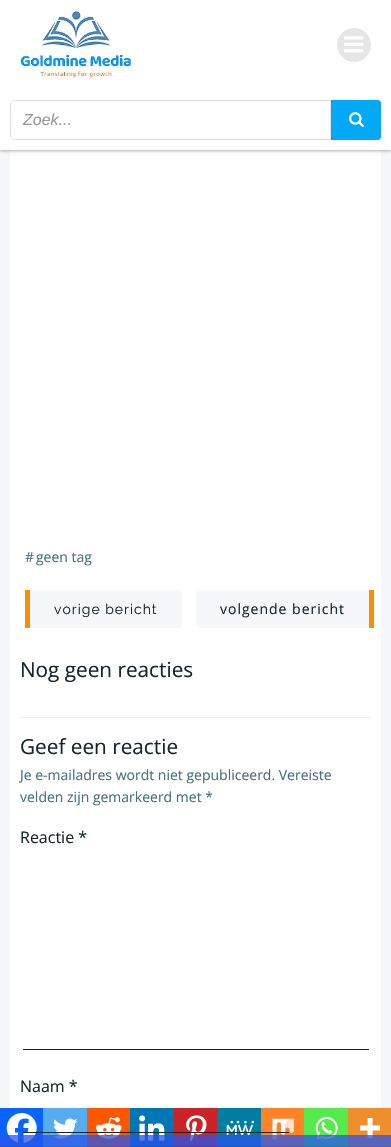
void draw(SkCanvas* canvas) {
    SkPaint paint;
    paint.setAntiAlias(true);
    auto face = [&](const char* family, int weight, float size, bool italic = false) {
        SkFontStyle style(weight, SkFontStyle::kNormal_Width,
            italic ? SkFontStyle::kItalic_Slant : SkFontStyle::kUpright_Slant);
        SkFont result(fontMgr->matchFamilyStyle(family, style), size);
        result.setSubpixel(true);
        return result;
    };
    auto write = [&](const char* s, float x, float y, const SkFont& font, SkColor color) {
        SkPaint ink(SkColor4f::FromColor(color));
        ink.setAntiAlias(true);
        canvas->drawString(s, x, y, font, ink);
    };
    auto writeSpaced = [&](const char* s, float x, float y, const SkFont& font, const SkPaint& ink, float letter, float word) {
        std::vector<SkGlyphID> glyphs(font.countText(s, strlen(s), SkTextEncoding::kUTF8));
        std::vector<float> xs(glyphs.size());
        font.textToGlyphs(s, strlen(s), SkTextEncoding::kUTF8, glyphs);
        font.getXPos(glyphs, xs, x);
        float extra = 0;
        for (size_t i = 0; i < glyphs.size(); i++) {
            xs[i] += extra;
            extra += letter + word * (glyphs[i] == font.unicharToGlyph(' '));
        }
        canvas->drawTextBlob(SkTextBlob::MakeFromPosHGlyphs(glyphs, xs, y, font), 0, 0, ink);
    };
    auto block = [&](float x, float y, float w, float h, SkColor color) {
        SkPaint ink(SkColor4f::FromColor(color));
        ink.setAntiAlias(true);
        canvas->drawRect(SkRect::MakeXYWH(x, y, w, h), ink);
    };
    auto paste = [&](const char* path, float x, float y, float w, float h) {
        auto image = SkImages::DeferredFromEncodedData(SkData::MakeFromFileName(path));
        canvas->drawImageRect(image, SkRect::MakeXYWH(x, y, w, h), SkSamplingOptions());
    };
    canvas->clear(SkColorSetRGB(245, 247, 248));
    block(10, 150, 371, 958, SK_ColorWHITE);
    paint.setColor(SkColorSetARGB(128, 0, 0, 0));
    paint.setMaskFilter(SkMaskFilter::MakeBlur(kNormal_SkBlurStyle, 2));
    canvas->drawRect(SkRect::MakeXYWH(0, 0, 391, 150), paint);
    paint.setMaskFilter(nullptr);
    block(0, 0, 391, 150, SK_ColorWHITE);
    paste("pic1.png", 20, 11, 112, 68);
    paint.setColor(SkColorSetRGB(230, 230, 230));
    canvas->drawCircle(354, 45, 17, paint);
    paste("pic2.png", 344, 36, 20, 17);
    paint.setStyle(SkPaint::kStroke_Style);
    paint.setStrokeWidth(1);
    paint.setColor(SkColorSetRGB(222, 222, 222));
    canvas->drawPath(SkPathBuilder().moveTo(15, 100.5f).lineTo(330.5f, 100.5f).lineTo(330.5f, 139.5f).lineTo(15, 139.5f).cubicTo(12.5f, 139.5f, 10.5f, 137.5f, 10.5f, 135).lineTo(10.5f, 105).cubicTo(10.5f, 102.5f, 12.5f, 100.5f, 15, 100.5f).close().detach(), paint);
    auto kFont1 = face("Liberation Sans", 400, 16, true);
    write("Zoek...", 23, 125, kFont1, SkColorSetRGB(153, 153, 153));
    paint.setStyle(SkPaint::kFill_Style);
    paint.setColor(SkColorSetRGB(3, 169, 244));
    canvas->drawPath(SkPathBuilder().moveTo(331, 100).lineTo(378, 100).cubicTo(379.5f, 100, 381, 101.5f, 381, 103).lineTo(381, 137).cubicTo(381, 138.5f, 379.5f, 140, 378, 140).lineTo(331, 140).close().detach(), paint);
    paste("pic3.png", 349, 112, 15, 16);
    auto kFont2 = face("Open Sans", 400, 14);
    write("#", 25, 562, kFont2, SkColorSetRGB(70, 112, 127));
    write("geen tag", 36, 562, kFont2, SkColorSetRGB(70, 112, 127));
    paint.setColor(SkColorSetRGB(245, 247, 248));
    canvas->drawPath(SkPathBuilder().moveTo(30, 590).lineTo(177, 590).cubicTo(180, 590, 182, 592, 182, 595).lineTo(182, 623).cubicTo(182, 626, 180, 628, 177, 628).lineTo(30, 628).close().detach(), paint);
    block(25, 590, 5, 38, SkColorSetRGB(247, 144, 7));
    auto kFont3 = face("Raleway", 400, 14);
    paint.setColor(SkColorSetRGB(23, 37, 42));
    writeSpaced("vorige bericht", 54, 614, kFont3, paint, 1, 0);
    paint.setColor(SkColorSetRGB(245, 247, 248));
    canvas->drawPath(SkPathBuilder().moveTo(201, 590).lineTo(369, 590).lineTo(369, 628).lineTo(201, 628).cubicTo(198, 628, 196, 626, 196, 623).lineTo(196, 595).cubicTo(196, 592, 198, 590, 201, 590).close().detach(), paint);
    block(369, 590, 5, 38, SkColorSetRGB(247, 144, 7));
    paint.setColor(SkColorSetRGB(23, 37, 42));
    writeSpaced("volgende bericht", 220, 614, kFont2, paint, 1, 0);
    block(0, 1108, 43, 39, SkColorSetRGB(7, 101, 254));
    paste("pic4.png", 6, 1113, 31, 30);
    block(43, 1108, 44, 39, SkColorSetRGB(85, 172, 238));
    paste("pic5.png", 53, 1118, 25, 21);
    block(87, 1108, 43, 39, SkColorSetRGB(255, 87, 0));
    paste("pic6.png", 95, 1117, 27, 22);
    block(130, 1108, 44, 39, SkColorSetRGB(0, 119, 181));
    paste("pic7.png", 139, 1115, 26, 26);
    block(174, 1108, 43, 39, SkColorSetRGB(204, 35, 41));
    paste("pic8.png", 186, 1115, 21, 27);
    block(217, 1108, 44, 39, SkColorSetRGB(0, 125, 161));
    paste("pic9.png", 226, 1120, 29, 16);
    block(261, 1108, 43, 39, SkColorSetRGB(255, 130, 38));
    paste("pic10.png", 272, 1118, 22, 22);
    block(304, 1108, 44, 39, SkColorSetRGB(85, 235, 76));
    paste("pic11.png", 315, 1117, 23, 23);
    block(348, 1108, 43, 39, SkColorSetRGB(238, 142, 45));
    paste("pic12.png", 360, 1118, 21, 20);
    auto kFont4 = face("Open Sans", 400, 20.75f);
    write("Nog geen reacties", 20, 677, kFont4, SkColorSetRGB(23, 37, 42));
    block(20, 717, 351, 1, SkColorSetRGB(238, 238, 238));
    write("Geef een reactie", 20, 754, kFont4, SkColorSetRGB(23, 37, 42));
    write("Je e-mailadres wordt niet gepubliceerd. Vereiste", 20, 780, kFont2, SkColorSetRGB(70, 112, 127));
    write("velden zijn gemarkeerd met *", 20, 802, kFont2, SkColorSetRGB(70, 112, 127));
    auto kFont5 = face("Open Sans", 400, 16);
    write("Reactie *", 20, 843, kFont5, SkColorSetRGB(23, 37, 42));
    block(23, 1049, 346, 1, SkColorSetRGB(23, 37, 42));
    write("Naam *", 20, 1092, kFont5, SkColorSetRGB(23, 37, 42));
    block(23, 1132, 266, 1, SkColorSetRGB(23, 37, 42));
    block(0, 1135, 391, 12, SkColorSetARGB(128, 114, 154, 191));
    block(0, 1135, 391, 12, SkColorSetARGB(128, 0, 50, 252));
    block(0, 1146, 391, 1, SkColorSetARGB(18, 0, 0, 0));
}
